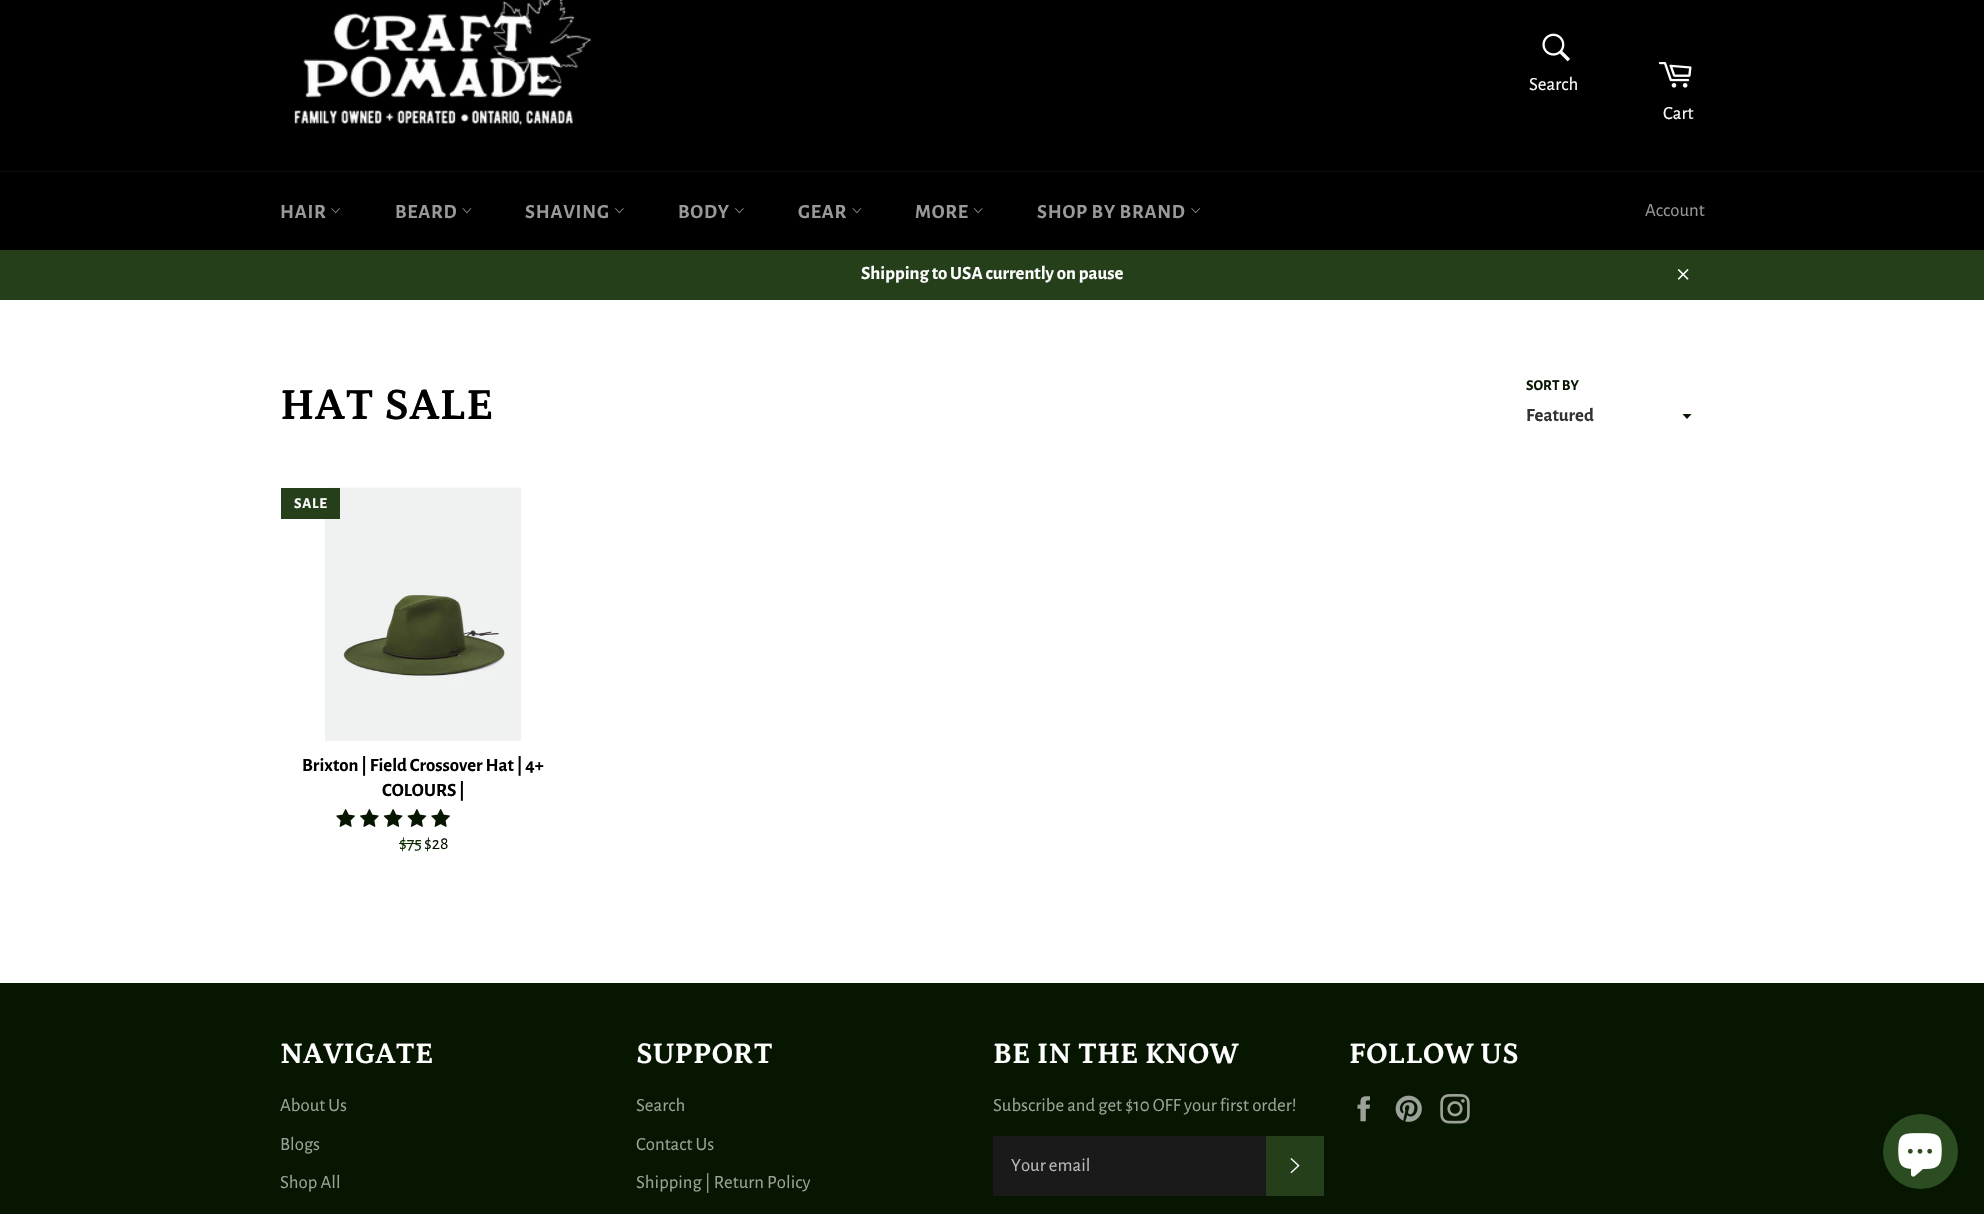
void draw(SkCanvas* canvas) {
    SkPaint paint;
    paint.setAntiAlias(true);
    auto face = [&](const char* family, int weight, float size, bool italic = false) {
        SkFontStyle style(weight, SkFontStyle::kNormal_Width,
            italic ? SkFontStyle::kItalic_Slant : SkFontStyle::kUpright_Slant);
        SkFont result(fontMgr->matchFamilyStyle(family, style), size);
        result.setSubpixel(true);
        return result;
    };
    auto write = [&](const char* s, float x, float y, const SkFont& font, SkColor color) {
        SkPaint ink(SkColor4f::FromColor(color));
        ink.setAntiAlias(true);
        canvas->drawString(s, x, y, font, ink);
    };
    auto writeSpaced = [&](const char* s, float x, float y, const SkFont& font, const SkPaint& ink, float letter, float word) {
        std::vector<SkGlyphID> glyphs(font.countText(s, strlen(s), SkTextEncoding::kUTF8));
        std::vector<float> xs(glyphs.size());
        font.textToGlyphs(s, strlen(s), SkTextEncoding::kUTF8, glyphs);
        font.getXPos(glyphs, xs, x);
        float extra = 0;
        for (size_t i = 0; i < glyphs.size(); i++) {
            xs[i] += extra;
            extra += letter + word * (glyphs[i] == font.unicharToGlyph(' '));
        }
        canvas->drawTextBlob(SkTextBlob::MakeFromPosHGlyphs(glyphs, xs, y, font), 0, 0, ink);
    };
    auto block = [&](float x, float y, float w, float h, SkColor color) {
        SkPaint ink(SkColor4f::FromColor(color));
        ink.setAntiAlias(true);
        canvas->drawRect(SkRect::MakeXYWH(x, y, w, h), ink);
    };
    auto paste = [&](const char* path, float x, float y, float w, float h) {
        auto image = SkImages::DeferredFromEncodedData(SkData::MakeFromFileName(path));
        canvas->drawImageRect(image, SkRect::MakeXYWH(x, y, w, h), SkSamplingOptions());
    };
    canvas->clear(SK_ColorWHITE);
    block(0, 0, 1984, 171, SK_ColorBLACK);
    paste("pic1.png", 293, 0, 299, 126);
    paste("pic2.png", 1542, 33, 28, 29);
    auto kFont1 = face("Alegreya Sans", 400, 18.75f);
    write("Search", 1529, 90, kFont1, SK_ColorWHITE);
    paste("pic3.png", 1658, 62, 34, 26);
    write("Cart", 1663, 119, kFont1, SK_ColorWHITE);
    block(0, 172, 1984, 78, SK_ColorBLACK);
    block(0, 171, 1984, 1, SkColorSetRGB(13, 13, 13));
    auto kFont2 = face("Alegreya Sans", 700, 20);
    paint.setColor(SkColorSetRGB(153, 153, 153));
    writeSpaced("HAIR", 280, 218, kFont2, paint, 0.75f, 0);
    paste("pic4.png", 331, 208, 9, 6);
    writeSpaced("BEARD", 395, 218, kFont2, paint, 0.75f, 0);
    paste("pic5.png", 462, 208, 10, 6);
    writeSpaced("SHAVING", 525, 218, kFont2, paint, 0.75f, 0);
    paste("pic6.png", 615, 208, 9, 6);
    writeSpaced("BODY", 678, 218, kFont2, paint, 0.75f, 0);
    paste("pic6.png", 735, 208, 9, 6);
    writeSpaced("GEAR", 798, 218, kFont2, paint, 0.75f, 0);
    paste("pic5.png", 852, 208, 10, 6);
    writeSpaced("MORE", 915, 218, kFont2, paint, 0.75f, 0);
    paste("pic7.png", 973, 208, 10, 6);
    writeSpaced("SHOP BY BRAND", 1037, 218, kFont2, paint, 0.75f, 0);
    paste("pic4.png", 1191, 208, 9, 6);
    write("Account", 1645, 216, kFont1, SkColorSetRGB(153, 153, 153));
    block(0, 250, 1984, 50, SkColorSetRGB(36, 63, 26));
    auto kFont3 = face("Alegreya Sans", 700, 18.75f);
    write("Shipping to USA currently on pause", 861, 279, kFont3, SK_ColorWHITE);
    paste("pic8.png", 1677, 269, 12, 11);
    auto kFont4 = face("Petrona", 700, 45);
    write("HAT SALE", 280, 419, kFont4, SK_ColorBLACK);
    auto kFont5 = face("Alegreya Sans", 700, 15);
    write("SORT BY", 1526, 390, kFont5, SkColorSetRGB(6, 22, 0));
    paint.setColor(SkColorSetRGB(6, 22, 0));
    canvas->drawPath(SkPathBuilder().moveTo(1682.5f, 414).lineTo(1687, 419).lineTo(1691.5f, 414).close().detach(), paint);
    write("Featured", 1526, 421, kFont3, SkColorSetRGB(51, 51, 51));
    paste("pic9.png", 325, 487, 197, 254);
    block(281, 488, 59, 31, SkColorSetRGB(36, 63, 26));
    paint.setColor(SK_ColorWHITE);
    writeSpaced("SALE", 294, 508, kFont5, paint, 0.75f, 0);
    write("Brixton | Field Crossover Hat | 4+", 302, 771, kFont3, SK_ColorBLACK);
    write("COLOURS |", 382, 796, kFont3, SK_ColorBLACK);
    paste("pic10.png", 336, 809, 19, 18);
    paste("pic11.png", 360, 809, 19, 18);
    paste("pic12.png", 383, 809, 20, 18);
    paste("pic13.png", 407, 809, 20, 18);
    paste("pic10.png", 431, 809, 19, 18);
    auto kFont6 = face("Alegreya Sans", 400, 18);
    write("$75", 399, 849, kFont6, SkColorSetRGB(13, 47, 0));
    block(399, 843, 22, 1, SkColorSetRGB(13, 47, 0));
    write("$28", 424, 849, kFont6, SkColorSetRGB(6, 22, 0));
    block(0, 983, 1984, 231, SkColorSetRGB(6, 22, 0));
    auto kFont7 = face("Petrona", 700, 30);
    write("NAVIGATE", 280, 1063, kFont7, SK_ColorWHITE);
    write("About Us", 280, 1111, kFont1, SkColorSetRGB(155, 162, 153));
    write("Blogs", 280, 1150, kFont1, SkColorSetRGB(155, 162, 153));
    write("Shop All", 280, 1188, kFont1, SkColorSetRGB(155, 162, 153));
    write("SUPPORT", 636, 1063, kFont7, SK_ColorWHITE);
    write("Search", 636, 1111, kFont1, SkColorSetRGB(155, 162, 153));
    write("Contact Us", 636, 1150, kFont1, SkColorSetRGB(155, 162, 153));
    write("Shipping | Return Policy", 636, 1188, kFont1, SkColorSetRGB(155, 162, 153));
    write("BE IN THE KNOW", 993, 1063, kFont7, SK_ColorWHITE);
    write("Subscribe and get $10 OFF your first order!", 993, 1111, kFont1, SkColorSetRGB(155, 162, 153));
    block(993, 1136, 273, 60, SkColorSetRGB(26, 26, 26));
    write("Your email", 1011, 1171, kFont1, SkColorSetRGB(186, 186, 186));
    block(1266, 1136, 58, 60, SkColorSetRGB(36, 63, 26));
    paste("pic14.png", 1290, 1158, 10, 16);
    write("FOLLOW US", 1349, 1063, kFont7, SK_ColorWHITE);
    paste("pic15.png", 1357, 1096, 13, 26);
    paste("pic16.png", 1395, 1095, 27, 27);
    paste("pic17.png", 1440, 1094, 30, 30);
    paint.setColor(SkColorSetRGB(44, 76, 33));
    canvas->drawCircle(1920.5f, 1151.5f, 37.5f, paint);
    paste("pic18.png", 1898, 1133, 44, 44);
}
